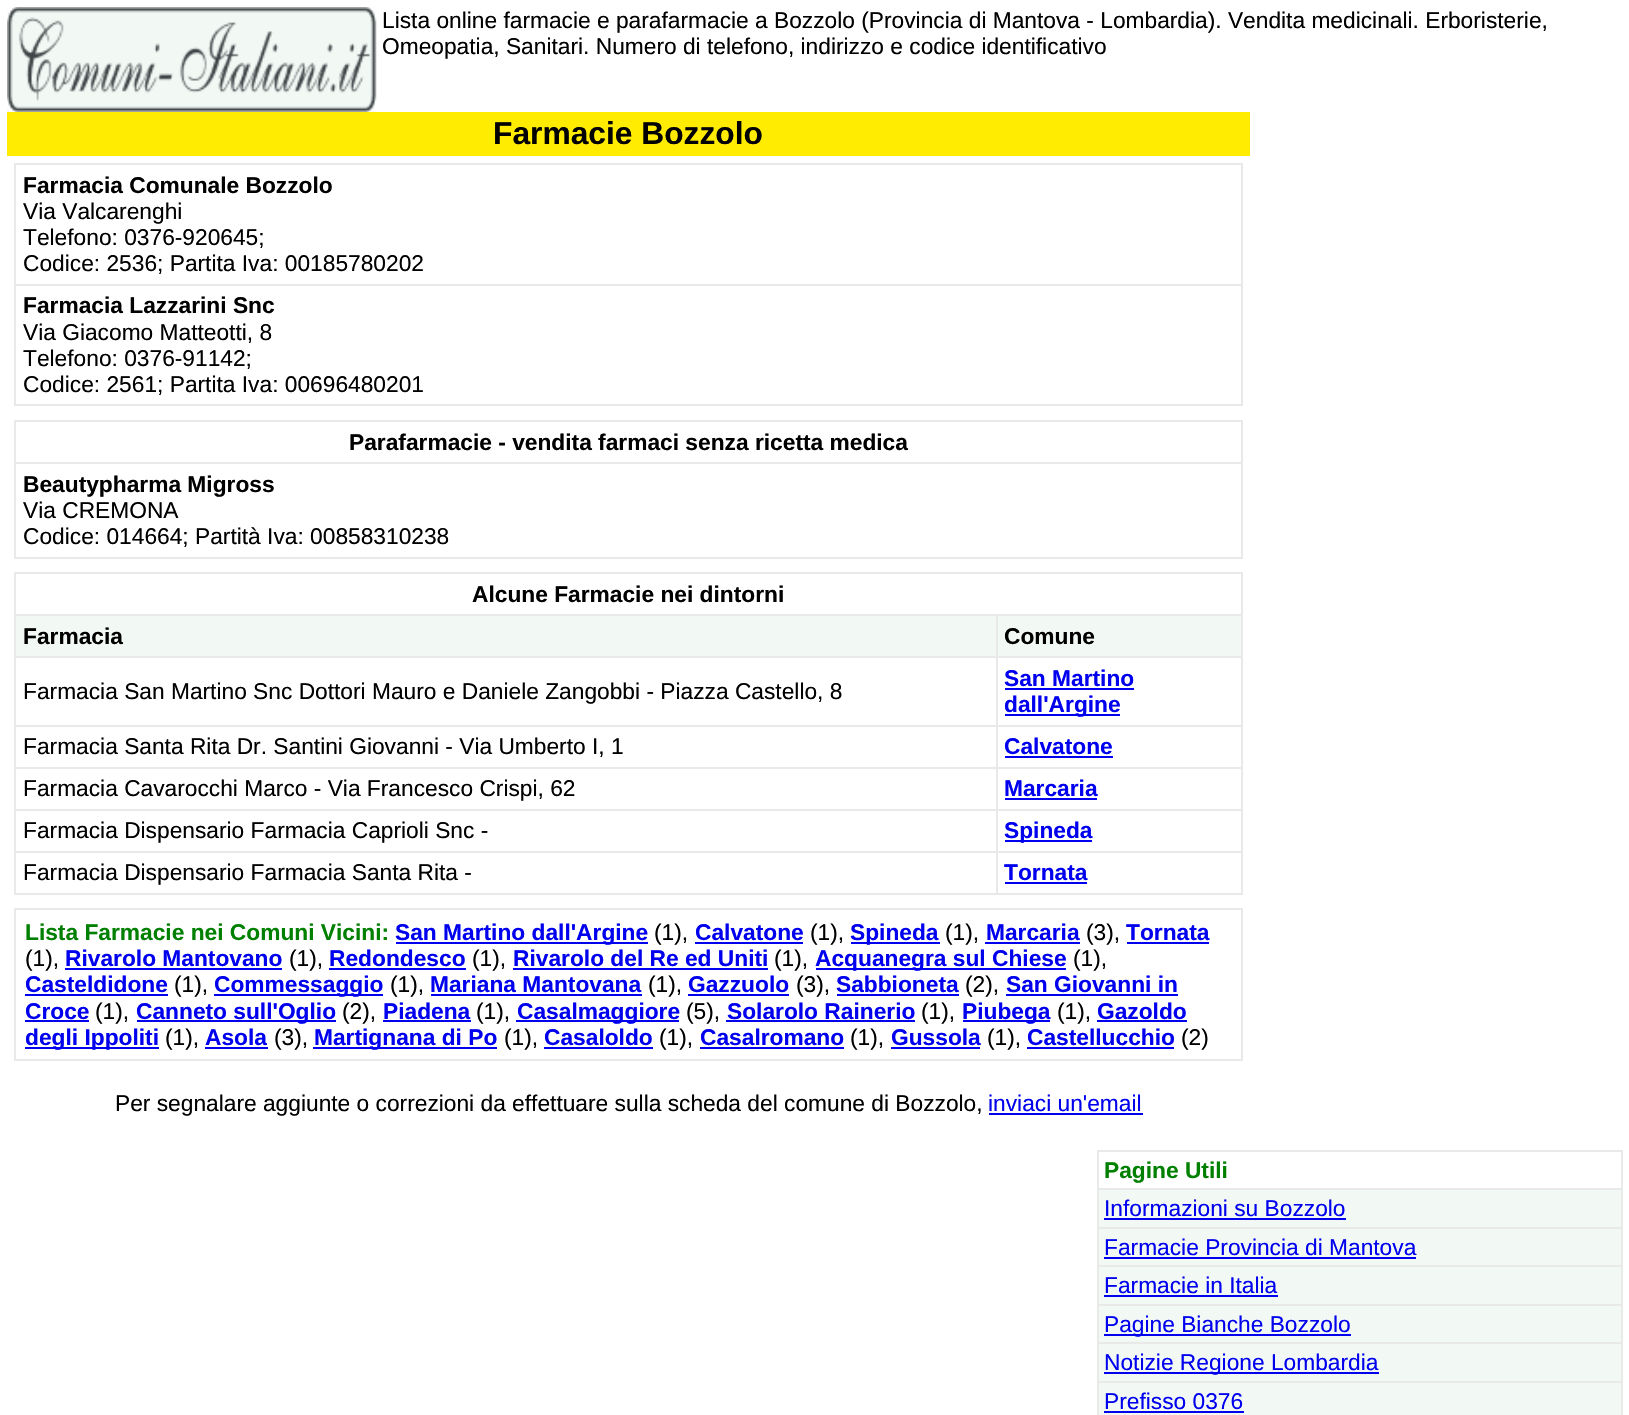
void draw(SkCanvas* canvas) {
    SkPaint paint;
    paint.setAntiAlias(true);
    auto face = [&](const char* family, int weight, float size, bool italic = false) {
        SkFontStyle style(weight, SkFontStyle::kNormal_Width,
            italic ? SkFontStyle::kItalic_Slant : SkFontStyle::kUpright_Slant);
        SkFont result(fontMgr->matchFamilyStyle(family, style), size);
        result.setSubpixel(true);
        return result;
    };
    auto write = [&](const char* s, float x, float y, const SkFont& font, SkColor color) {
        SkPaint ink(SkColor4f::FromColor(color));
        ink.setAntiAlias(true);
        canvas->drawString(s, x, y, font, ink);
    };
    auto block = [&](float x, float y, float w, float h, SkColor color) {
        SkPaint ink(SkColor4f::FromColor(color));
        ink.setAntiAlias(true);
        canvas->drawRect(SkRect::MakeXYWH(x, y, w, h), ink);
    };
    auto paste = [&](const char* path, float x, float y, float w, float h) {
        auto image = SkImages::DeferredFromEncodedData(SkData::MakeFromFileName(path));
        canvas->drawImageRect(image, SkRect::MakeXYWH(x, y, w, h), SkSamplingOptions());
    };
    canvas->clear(SK_ColorWHITE);
    paste("pic1.png", 7, 7, 370, 105);
    auto kFont1 = face("Liberation Sans", 400, 22.75f);
    write("Lista online farmacie e parafarmacie a Bozzolo (Provincia di Mantova - Lombardia). Vendita medicinali. Erboristerie,", 382, 28, kFont1, SK_ColorBLACK);
    write("Omeopatia, Sanitari. Numero di telefono, indirizzo e codice identificativo", 382, 54, kFont1, SK_ColorBLACK);
    block(7, 112, 1243, 44, SkColorSetRGB(255, 236, 0));
    auto kFont2 = face("Liberation Sans", 700, 31.75f);
    write("Farmacie Bozzolo", 493, 144, kFont2, SK_ColorBLACK);
    block(14, 163, 1229, 2, SkColorSetRGB(233, 233, 233));
    block(1241, 163, 2, 243, SkColorSetRGB(233, 233, 233));
    block(14, 404, 1229, 2, SkColorSetRGB(233, 233, 233));
    block(14, 163, 2, 243, SkColorSetRGB(233, 233, 233));
    auto kFont3 = face("Liberation Sans", 700, 22.75f);
    write("Farmacia Comunale Bozzolo", 23, 193, kFont3, SK_ColorBLACK);
    write("Via Valcarenghi", 23, 219, kFont1, SK_ColorBLACK);
    write("Telefono: 0376-920645;", 23, 245, kFont1, SK_ColorBLACK);
    write("Codice: 2536; Partita Iva: 00185780202", 23, 271, kFont1, SK_ColorBLACK);
    block(14, 284, 1229, 2, SkColorSetRGB(233, 233, 233));
    write("Farmacia Lazzarini Snc", 23, 313, kFont3, SK_ColorBLACK);
    write("Via Giacomo Matteotti, 8", 23, 340, kFont1, SK_ColorBLACK);
    write("Telefono: 0376-91142;", 23, 366, kFont1, SK_ColorBLACK);
    write("Codice: 2561; Partita Iva: 00696480201", 23, 392, kFont1, SK_ColorBLACK);
    block(14, 420, 1229, 2, SkColorSetRGB(233, 233, 233));
    block(1241, 420, 2, 138, SkColorSetRGB(233, 233, 233));
    block(14, 557, 1229, 2, SkColorSetRGB(233, 233, 233));
    block(14, 420, 2, 138, SkColorSetRGB(233, 233, 233));
    write("Parafarmacie - vendita farmaci senza ricetta medica", 349, 450, kFont3, SK_ColorBLACK);
    block(14, 462, 1229, 2, SkColorSetRGB(233, 233, 233));
    write("Beautypharma Migross", 23, 492, kFont3, SK_ColorBLACK);
    write("Via CREMONA", 23, 518, kFont1, SK_ColorBLACK);
    write("Codice: 014664; Partità Iva: 00858310238", 23, 544, kFont1, SK_ColorBLACK);
    block(14, 572, 1229, 2, SkColorSetRGB(233, 233, 233));
    block(1241, 572, 2, 322, SkColorSetRGB(233, 233, 233));
    block(14, 893, 1229, 2, SkColorSetRGB(233, 233, 233));
    block(14, 572, 2, 322, SkColorSetRGB(233, 233, 233));
    write("Alcune Farmacie nei dintorni", 472, 602, kFont3, SK_ColorBLACK);
    block(16, 616, 980, 40, SkColorSetRGB(242, 248, 244));
    block(996, 614, 247, 2, SkColorSetRGB(233, 233, 233));
    block(996, 656, 247, 2, SkColorSetRGB(233, 233, 233));
    block(996, 725, 247, 2, SkColorSetRGB(233, 233, 233));
    block(996, 767, 247, 2, SkColorSetRGB(233, 233, 233));
    block(996, 809, 247, 2, SkColorSetRGB(233, 233, 233));
    block(996, 851, 247, 2, SkColorSetRGB(233, 233, 233));
    block(996, 851, 2, 43, SkColorSetRGB(233, 233, 233));
    block(14, 851, 984, 2, SkColorSetRGB(233, 233, 233));
    block(996, 809, 2, 43, SkColorSetRGB(233, 233, 233));
    block(14, 809, 984, 2, SkColorSetRGB(233, 233, 233));
    block(996, 767, 2, 43, SkColorSetRGB(233, 233, 233));
    block(14, 767, 984, 2, SkColorSetRGB(233, 233, 233));
    block(996, 725, 2, 43, SkColorSetRGB(233, 233, 233));
    block(14, 725, 984, 2, SkColorSetRGB(233, 233, 233));
    block(996, 656, 2, 70, SkColorSetRGB(233, 233, 233));
    block(14, 656, 984, 2, SkColorSetRGB(233, 233, 233));
    block(996, 614, 2, 44, SkColorSetRGB(233, 233, 233));
    block(14, 614, 984, 2, SkColorSetRGB(233, 233, 233));
    write("Farmacia", 23, 644, kFont3, SK_ColorBLACK);
    block(998, 616, 243, 40, SkColorSetRGB(242, 248, 244));
    write("Comune", 1004, 644, kFont3, SK_ColorBLACK);
    write("Farmacia San Martino Snc Dottori Mauro e Daniele Zangobbi - Piazza Castello, 8", 23, 699, kFont1, SK_ColorBLACK);
    write("San Martino", 1004, 686, kFont3, SkColorSetRGB(0, 0, 238));
    block(1005, 688, 129, 2, SkColorSetRGB(0, 0, 238));
    block(1005, 714, 115, 2, SkColorSetRGB(0, 0, 238));
    write("dall'Argine", 1004, 712, kFont3, SkColorSetRGB(0, 0, 238));
    write("Farmacia Santa Rita Dr. Santini Giovanni - Via Umberto I, 1", 23, 754, kFont1, SK_ColorBLACK);
    write("Calvatone", 1004, 754, kFont3, SkColorSetRGB(0, 0, 238));
    block(1005, 756, 108, 2, SkColorSetRGB(0, 0, 238));
    write("Farmacia Cavarocchi Marco - Via Francesco Crispi, 62", 23, 796, kFont1, SK_ColorBLACK);
    write("Marcaria", 1004, 796, kFont3, SkColorSetRGB(0, 0, 238));
    block(1005, 798, 92, 2, SkColorSetRGB(0, 0, 238));
    write("Farmacia Dispensario Farmacia Caprioli Snc -", 23, 838, kFont1, SK_ColorBLACK);
    block(1005, 840, 87, 2, SkColorSetRGB(0, 0, 238));
    write("Spineda", 1004, 838, kFont3, SkColorSetRGB(0, 0, 238));
    write("Farmacia Dispensario Farmacia Santa Rita -", 23, 880, kFont1, SK_ColorBLACK);
    write("Tornata", 1004, 880, kFont3, SkColorSetRGB(0, 0, 238));
    block(1005, 882, 82, 2, SkColorSetRGB(0, 0, 238));
    block(14, 908, 1229, 2, SkColorSetRGB(233, 233, 233));
    block(1241, 908, 2, 153, SkColorSetRGB(233, 233, 233));
    block(14, 1059, 1229, 2, SkColorSetRGB(233, 233, 233));
    block(14, 908, 2, 153, SkColorSetRGB(233, 233, 233));
    write("Lista Farmacie nei Comuni Vicini:", 25, 940, kFont3, SkColorSetRGB(0, 128, 0));
    block(396, 942, 252, 2, SkColorSetRGB(0, 0, 238));
    write("San Martino dall'Argine", 395, 940, kFont3, SkColorSetRGB(0, 0, 238));
    write("(1),", 654, 940, kFont1, SK_ColorBLACK);
    write("Calvatone", 695, 940, kFont3, SkColorSetRGB(0, 0, 238));
    block(695, 942, 108, 2, SkColorSetRGB(0, 0, 238));
    write("(1),", 810, 940, kFont1, SK_ColorBLACK);
    block(851, 942, 89, 2, SkColorSetRGB(0, 0, 238));
    write("Spineda", 850, 940, kFont3, SkColorSetRGB(0, 0, 238));
    write("(1),", 945, 940, kFont1, SK_ColorBLACK);
    write("Marcaria", 986, 940, kFont3, SkColorSetRGB(0, 0, 238));
    block(985, 942, 95, 2, SkColorSetRGB(0, 0, 238));
    write("(3),", 1086, 940, kFont1, SK_ColorBLACK);
    write("Tornata", 1126, 940, kFont3, SkColorSetRGB(0, 0, 238));
    block(1127, 942, 82, 2, SkColorSetRGB(0, 0, 238));
    write("(1),", 25, 966, kFont1, SK_ColorBLACK);
    write("Rivarolo Mantovano", 65, 966, kFont3, SkColorSetRGB(0, 0, 238));
    block(65, 968, 217, 2, SkColorSetRGB(0, 0, 238));
    write("(1),", 289, 966, kFont1, SK_ColorBLACK);
    write("Redondesco", 329, 966, kFont3, SkColorSetRGB(0, 0, 238));
    block(329, 968, 137, 2, SkColorSetRGB(0, 0, 238));
    write("(1),", 472, 966, kFont1, SK_ColorBLACK);
    write("Rivarolo del Re ed Uniti", 513, 966, kFont3, SkColorSetRGB(0, 0, 238));
    block(513, 968, 255, 2, SkColorSetRGB(0, 0, 238));
    write("(1),", 774, 966, kFont1, SK_ColorBLACK);
    block(816, 968, 250, 2, SkColorSetRGB(0, 0, 238));
    write("Acquanegra sul Chiese", 815, 966, kFont3, SkColorSetRGB(0, 0, 238));
    write("(1),", 1073, 966, kFont1, SK_ColorBLACK);
    write("Casteldidone", 25, 992, kFont3, SkColorSetRGB(0, 0, 238));
    block(25, 994, 143, 2, SkColorSetRGB(0, 0, 238));
    write("(1),", 174, 992, kFont1, SK_ColorBLACK);
    block(214, 994, 169, 2, SkColorSetRGB(0, 0, 238));
    write("Commessaggio", 214, 992, kFont3, SkColorSetRGB(0, 0, 238));
    write("(1),", 390, 992, kFont1, SK_ColorBLACK);
    write("Mariana Mantovana", 430, 992, kFont3, SkColorSetRGB(0, 0, 238));
    block(431, 994, 211, 2, SkColorSetRGB(0, 0, 238));
    write("(1),", 648, 992, kFont1, SK_ColorBLACK);
    write("Gazzuolo", 688, 992, kFont3, SkColorSetRGB(0, 0, 238));
    block(688, 994, 101, 2, SkColorSetRGB(0, 0, 238));
    write("(3),", 796, 992, kFont1, SK_ColorBLACK);
    write("Sabbioneta", 836, 992, kFont3, SkColorSetRGB(0, 0, 238));
    block(837, 994, 122, 2, SkColorSetRGB(0, 0, 238));
    write("(2),", 965, 992, kFont1, SK_ColorBLACK);
    write("San Giovanni in", 1006, 992, kFont3, SkColorSetRGB(0, 0, 238));
    block(1006, 994, 172, 2, SkColorSetRGB(0, 0, 238));
    write("Croce", 25, 1019, kFont3, SkColorSetRGB(0, 0, 238));
    block(25, 1020, 64, 2, SkColorSetRGB(0, 0, 238));
    write("(1),", 95, 1019, kFont1, SK_ColorBLACK);
    block(137, 1020, 199, 2, SkColorSetRGB(0, 0, 238));
    write("Canneto sull'Oglio", 136, 1019, kFont3, SkColorSetRGB(0, 0, 238));
    write("(2),", 342, 1019, kFont1, SK_ColorBLACK);
    write("Piadena", 383, 1019, kFont3, SkColorSetRGB(0, 0, 238));
    block(383, 1020, 88, 2, SkColorSetRGB(0, 0, 238));
    write("(1),", 476, 1019, kFont1, SK_ColorBLACK);
    block(516, 1020, 163, 2, SkColorSetRGB(0, 0, 238));
    write("Casalmaggiore", 517, 1019, kFont3, SkColorSetRGB(0, 0, 238));
    write("(5),", 686, 1019, kFont1, SK_ColorBLACK);
    write("Solarolo Rainerio", 727, 1019, kFont3, SkColorSetRGB(0, 0, 238));
    block(726, 1020, 189, 2, SkColorSetRGB(0, 0, 238));
    write("(1),", 921, 1019, kFont1, SK_ColorBLACK);
    block(963, 1020, 87, 2, SkColorSetRGB(0, 0, 238));
    write("Piubega", 962, 1019, kFont3, SkColorSetRGB(0, 0, 238));
    write("(1),", 1057, 1019, kFont1, SK_ColorBLACK);
    write("Gazoldo", 1097, 1019, kFont3, SkColorSetRGB(0, 0, 238));
    block(1097, 1020, 90, 2, SkColorSetRGB(0, 0, 238));
    block(25, 1047, 134, 2, SkColorSetRGB(0, 0, 238));
    write("degli Ippoliti", 25, 1045, kFont3, SkColorSetRGB(0, 0, 238));
    write("(1),", 165, 1045, kFont1, SK_ColorBLACK);
    write("Asola", 205, 1045, kFont3, SkColorSetRGB(0, 0, 238));
    block(205, 1047, 63, 2, SkColorSetRGB(0, 0, 238));
    write("(3),", 274, 1045, kFont1, SK_ColorBLACK);
    block(313, 1047, 184, 2, SkColorSetRGB(0, 0, 238));
    write("Martignana di Po", 314, 1045, kFont3, SkColorSetRGB(0, 0, 238));
    write("(1),", 504, 1045, kFont1, SK_ColorBLACK);
    write("Casaloldo", 544, 1045, kFont3, SkColorSetRGB(0, 0, 238));
    block(544, 1047, 109, 2, SkColorSetRGB(0, 0, 238));
    write("(1),", 659, 1045, kFont1, SK_ColorBLACK);
    write("Casalromano", 700, 1045, kFont3, SkColorSetRGB(0, 0, 238));
    block(700, 1047, 144, 2, SkColorSetRGB(0, 0, 238));
    write("(1),", 850, 1045, kFont1, SK_ColorBLACK);
    write("Gussola", 891, 1045, kFont3, SkColorSetRGB(0, 0, 238));
    block(891, 1047, 89, 2, SkColorSetRGB(0, 0, 238));
    write("(1),", 987, 1045, kFont1, SK_ColorBLACK);
    write("Castellucchio", 1027, 1045, kFont3, SkColorSetRGB(0, 0, 238));
    block(1027, 1047, 147, 2, SkColorSetRGB(0, 0, 238));
    write("(2)", 1181, 1045, kFont1, SK_ColorBLACK);
    write("Per segnalare aggiunte o correzioni da effettuare sulla scheda del comune di Bozzolo,", 115, 1111, kFont1, SK_ColorBLACK);
    write("inviaci un'email", 988, 1111, kFont1, SkColorSetRGB(0, 0, 238));
    block(989, 1113, 154, 2, SkColorSetRGB(0, 0, 238));
    block(1099, 1190, 522, 225, SkColorSetRGB(242, 248, 244));
    block(1097, 1150, 525, 2, SkColorSetRGB(233, 233, 233));
    block(1621, 1150, 2, 265, SkColorSetRGB(233, 233, 233));
    block(1097, 1150, 2, 265, SkColorSetRGB(233, 233, 233));
    write("Pagine Utili", 1104, 1178, kFont3, SkColorSetRGB(0, 128, 0));
    block(1097, 1188, 525, 2, SkColorSetRGB(233, 233, 233));
    write("Informazioni su Bozzolo", 1104, 1216, kFont1, SkColorSetRGB(0, 0, 238));
    block(1104, 1218, 242, 2, SkColorSetRGB(0, 0, 238));
    block(1097, 1227, 525, 2, SkColorSetRGB(233, 233, 233));
    write("Farmacie Provincia di Mantova", 1104, 1255, kFont1, SkColorSetRGB(0, 0, 238));
    block(1104, 1257, 312, 2, SkColorSetRGB(0, 0, 238));
    block(1097, 1265, 525, 2, SkColorSetRGB(233, 233, 233));
    write("Farmacie in Italia", 1104, 1293, kFont1, SkColorSetRGB(0, 0, 238));
    block(1104, 1295, 174, 2, SkColorSetRGB(0, 0, 238));
    block(1097, 1304, 525, 2, SkColorSetRGB(233, 233, 233));
    block(1104, 1334, 247, 2, SkColorSetRGB(0, 0, 238));
    write("Pagine Bianche Bozzolo", 1104, 1332, kFont1, SkColorSetRGB(0, 0, 238));
    block(1097, 1342, 525, 2, SkColorSetRGB(233, 233, 233));
    block(1104, 1372, 275, 2, SkColorSetRGB(0, 0, 238));
    write("Notizie Regione Lombardia", 1104, 1370, kFont1, SkColorSetRGB(0, 0, 238));
    block(1097, 1381, 525, 2, SkColorSetRGB(233, 233, 233));
    write("Prefisso 0376", 1104, 1409, kFont1, SkColorSetRGB(0, 0, 238));
    block(1104, 1411, 140, 2, SkColorSetRGB(0, 0, 238));
}
